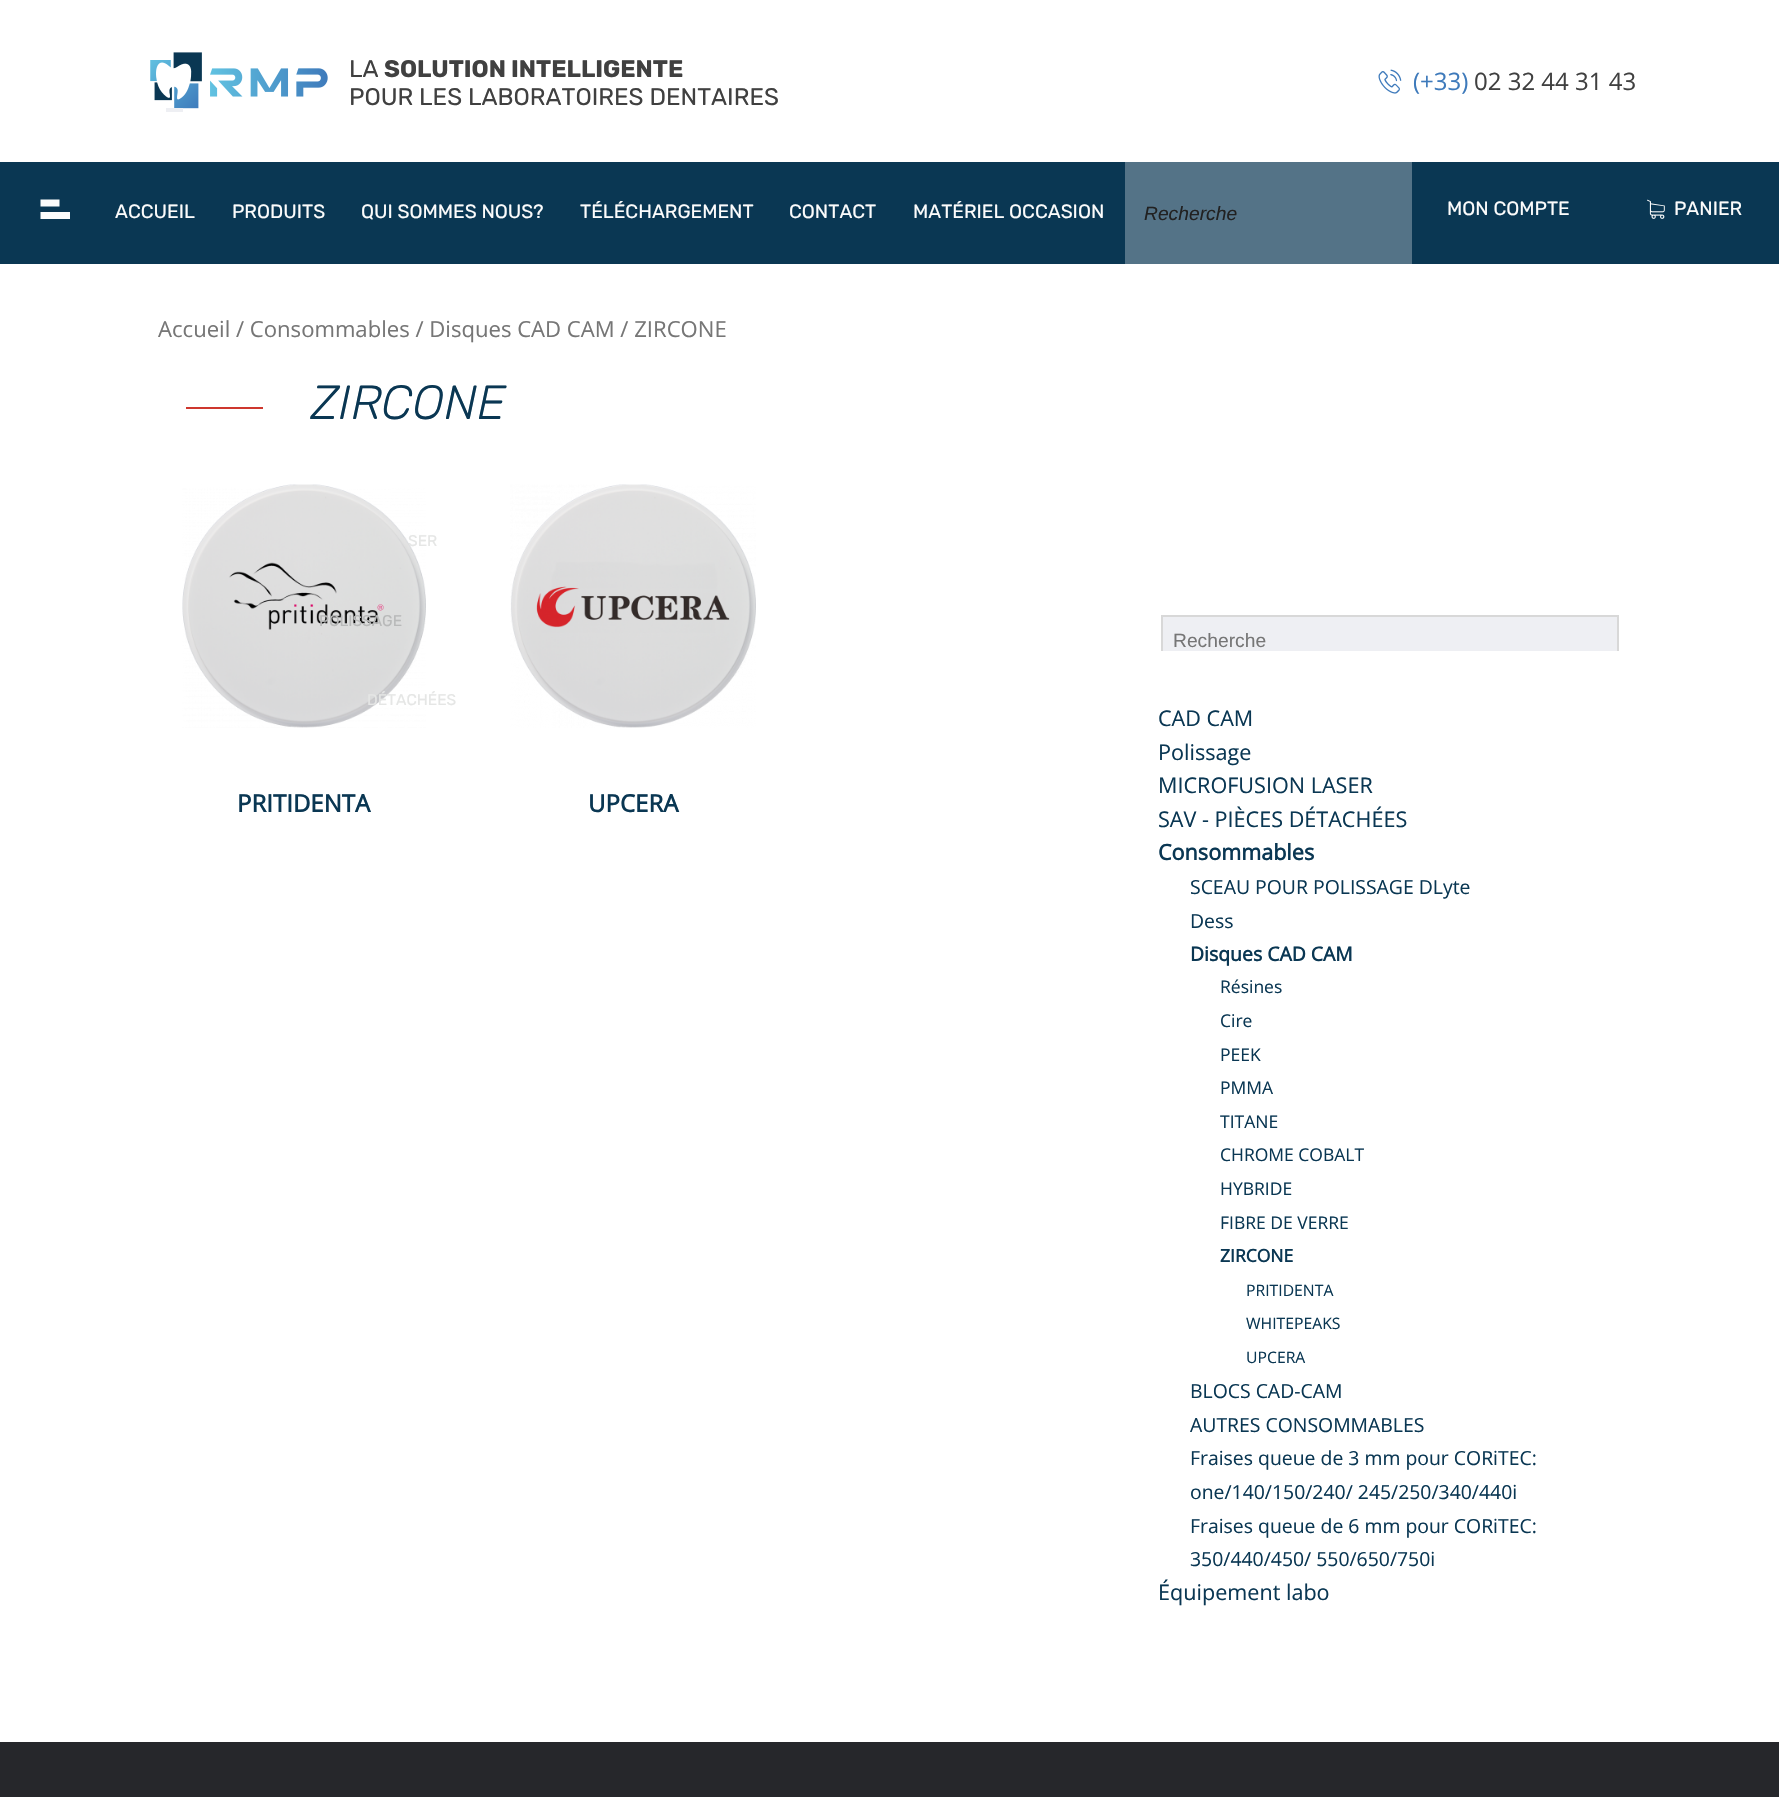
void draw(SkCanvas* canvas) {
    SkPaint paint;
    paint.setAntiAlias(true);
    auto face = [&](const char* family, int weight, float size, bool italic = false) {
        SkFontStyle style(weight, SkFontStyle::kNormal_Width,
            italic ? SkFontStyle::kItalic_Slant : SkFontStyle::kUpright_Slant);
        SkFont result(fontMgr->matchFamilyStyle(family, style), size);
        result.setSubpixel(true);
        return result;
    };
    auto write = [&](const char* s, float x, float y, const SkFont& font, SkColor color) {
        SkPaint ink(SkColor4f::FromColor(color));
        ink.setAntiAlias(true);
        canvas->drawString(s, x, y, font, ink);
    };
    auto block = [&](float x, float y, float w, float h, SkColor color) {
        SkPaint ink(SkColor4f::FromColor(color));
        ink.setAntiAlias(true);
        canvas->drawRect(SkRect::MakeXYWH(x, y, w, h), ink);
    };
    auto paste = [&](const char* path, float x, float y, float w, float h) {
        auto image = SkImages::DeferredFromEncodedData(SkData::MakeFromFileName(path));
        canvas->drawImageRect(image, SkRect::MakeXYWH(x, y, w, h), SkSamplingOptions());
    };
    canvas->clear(SK_ColorWHITE);
    paste("pic1.png", 150, 52, 178, 60);
    auto kFont1 = face("Rubik", 400, 24);
    write("LA", 349, 77, kFont1, SkColorSetRGB(64, 64, 64));
    auto kFont2 = face("Rubik", 700, 24);
    write("SOLUTION INTELLIGENTE", 384, 77, kFont2, SkColorSetRGB(64, 64, 64));
    write("POUR LES LABORATOIRES DENTAIRES", 349, 105, kFont1, SkColorSetRGB(64, 64, 64));
    paste("pic2.png", 1378, 69, 24, 25);
    auto kFont3 = face("Open Sans", 400, 24);
    write("(+33)", 1413, 90, kFont3, SkColorSetRGB(62, 122, 187));
    write("02 32 44 31 43", 1474, 90, kFont3, SkColorSetRGB(64, 64, 64));
    block(0, 162, 1779, 102, SkColorSetRGB(10, 55, 83));
    paint.setColor(SkColorSetRGB(252, 252, 252));
    canvas->drawPath(SkPathBuilder().moveTo(40.5f, 199.5f).lineTo(59.5f, 199.5f).lineTo(59.5f, 206.5f).lineTo(40.5f, 206.5f).close().moveTo(40.5f, 212).lineTo(70, 212).lineTo(70, 219).lineTo(40.5f, 219).close().detach(), paint);
    auto kFont4 = face("Rubik", 400, 19.25f);
    write("ACCUEIL", 115, 218, kFont4, SkColorSetRGB(252, 252, 252));
    write("PRODUITS", 232, 218, kFont4, SkColorSetRGB(252, 252, 252));
    paste("pic4.png", 182, 484, 244, 244);
    auto kFont5 = face("Rubik", 400, 15.5f);
    write("SER", 408, 546, kFont5, SkColorSetRGB(229, 230, 229));
    write("POLISSAGE", 319, 626, kFont5, SkColorSetRGB(184, 185, 185));
    write("DÉTACHÉES", 367, 705, kFont5, SkColorSetRGB(229, 230, 229));
    write("TÉLÉCHARGEMENT", 580, 218, kFont4, SkColorSetRGB(252, 252, 252));
    write("MATÉRIEL OCCASION", 913, 218, kFont4, SkColorSetRGB(252, 252, 252));
    write("MON COMPTE", 1447, 215, kFont4, SkColorSetRGB(252, 252, 252));
    paste("pic3.png", 1647, 199, 18, 20);
    write("PANIER", 1674, 215, kFont4, SkColorSetRGB(252, 252, 252));
    write("QUI SOMMES NOUS?", 361, 218, kFont4, SkColorSetRGB(252, 252, 252));
    write("CONTACT", 789, 218, kFont4, SkColorSetRGB(252, 252, 252));
    block(1125, 162, 287, 102, SkColorSetRGB(84, 115, 135));
    auto kFont6 = face("Liberation Sans", 400, 19.25f, true);
    write("Recherche", 1144, 220, kFont6, SkColorSetRGB(33, 33, 33));
    auto kFont7 = face("Open Sans", 400, 22.1f);
    write("Accueil / Consommables / Disques CAD CAM / ZIRCONE", 158, 337, kFont7, SkColorSetRGB(118, 118, 118));
    block(186, 407, 77, 2, SkColorSetRGB(206, 55, 46));
    auto kFont8 = face("Rubik", 300, 48, true);
    write("ZIRCONE", 311, 419, kFont8, SkColorSetRGB(10, 55, 83));
    auto kFont9 = face("Open Sans", 700, 24);
    write("PRITIDENTA", 237, 812, kFont9, SkColorSetRGB(10, 55, 83));
    paste("pic5.png", 510, 484, 246, 244);
    write("UPCERA", 588, 812, kFont9, SkColorSetRGB(10, 55, 83));
    block(1163, 617, 454, 34, SkColorSetRGB(238, 239, 243));
    canvas->save();
    canvas->clipRect(SkRect::MakeXYWH(1161, 615, 458, 36));
    paint.setStyle(SkPaint::kStroke_Style);
    paint.setStrokeWidth(2);
    paint.setColor(SkColorSetRGB(216, 216, 216));
    canvas->drawRect(SkRect::MakeXYWH(1162, 616, 456, 51), paint);
    canvas->restore();
    auto kFont10 = face("Liberation Sans", 400, 19.25f);
    write("Recherche", 1173, 647, kFont10, SkColorSetRGB(118, 118, 118));
    auto kFont11 = face("Open Sans", 400, 21.6f);
    write("CAD CAM", 1158, 726, kFont11, SkColorSetRGB(10, 55, 83));
    write("Polissage", 1158, 760, kFont11, SkColorSetRGB(10, 55, 83));
    write("MICROFUSION LASER", 1158, 793, kFont11, SkColorSetRGB(10, 55, 83));
    write("SAV - PIÈCES DÉTACHÉES", 1158, 827, kFont11, SkColorSetRGB(10, 55, 83));
    auto kFont12 = face("Open Sans", 700, 21.6f);
    write("Consommables", 1158, 860, kFont12, SkColorSetRGB(10, 55, 83));
    auto kFont13 = face("Open Sans", 400, 19.4f);
    write("SCEAU POUR POLISSAGE DLyte", 1190, 894, kFont13, SkColorSetRGB(10, 55, 83));
    write("Dess", 1190, 928, kFont13, SkColorSetRGB(10, 55, 83));
    auto kFont14 = face("Open Sans", 700, 19.4f);
    write("Disques CAD CAM", 1190, 961, kFont14, SkColorSetRGB(10, 55, 83));
    auto kFont15 = face("Open Sans", 400, 17.5f);
    write("Résines", 1220, 993, kFont15, SkColorSetRGB(10, 55, 83));
    write("Cire", 1220, 1027, kFont15, SkColorSetRGB(10, 55, 83));
    write("PEEK", 1220, 1061, kFont15, SkColorSetRGB(10, 55, 83));
    write("PMMA", 1220, 1094, kFont15, SkColorSetRGB(10, 55, 83));
    write("TITANE", 1220, 1128, kFont15, SkColorSetRGB(10, 55, 83));
    write("CHROME COBALT", 1220, 1161, kFont15, SkColorSetRGB(10, 55, 83));
    write("HYBRIDE", 1220, 1195, kFont15, SkColorSetRGB(10, 55, 83));
    write("FIBRE DE VERRE", 1220, 1229, kFont15, SkColorSetRGB(10, 55, 83));
    auto kFont16 = face("Open Sans", 700, 17.5f);
    write("ZIRCONE", 1220, 1262, kFont16, SkColorSetRGB(10, 55, 83));
    auto kFont17 = face("Open Sans", 400, 15.75f);
    write("PRITIDENTA", 1246, 1296, kFont17, SkColorSetRGB(10, 55, 83));
    write("WHITEPEAKS", 1246, 1329, kFont17, SkColorSetRGB(10, 55, 83));
    write("UPCERA", 1246, 1363, kFont17, SkColorSetRGB(10, 55, 83));
    write("BLOCS CAD-CAM", 1190, 1398, kFont13, SkColorSetRGB(10, 55, 83));
    write("AUTRES CONSOMMABLES", 1190, 1432, kFont13, SkColorSetRGB(10, 55, 83));
    write("Fraises queue de 3 mm pour CORiTEC:", 1190, 1465, kFont13, SkColorSetRGB(10, 55, 83));
    write("one/140/150/240/ 245/250/340/440i", 1190, 1499, kFont13, SkColorSetRGB(10, 55, 83));
    write("Fraises queue de 6 mm pour CORiTEC:", 1190, 1533, kFont13, SkColorSetRGB(10, 55, 83));
    write("350/440/450/ 550/650/750i", 1190, 1566, kFont13, SkColorSetRGB(10, 55, 83));
    write("Équipement labo", 1158, 1600, kFont11, SkColorSetRGB(10, 55, 83));
    block(0, 1742, 1779, 55, SkColorSetRGB(38, 39, 43));
}
